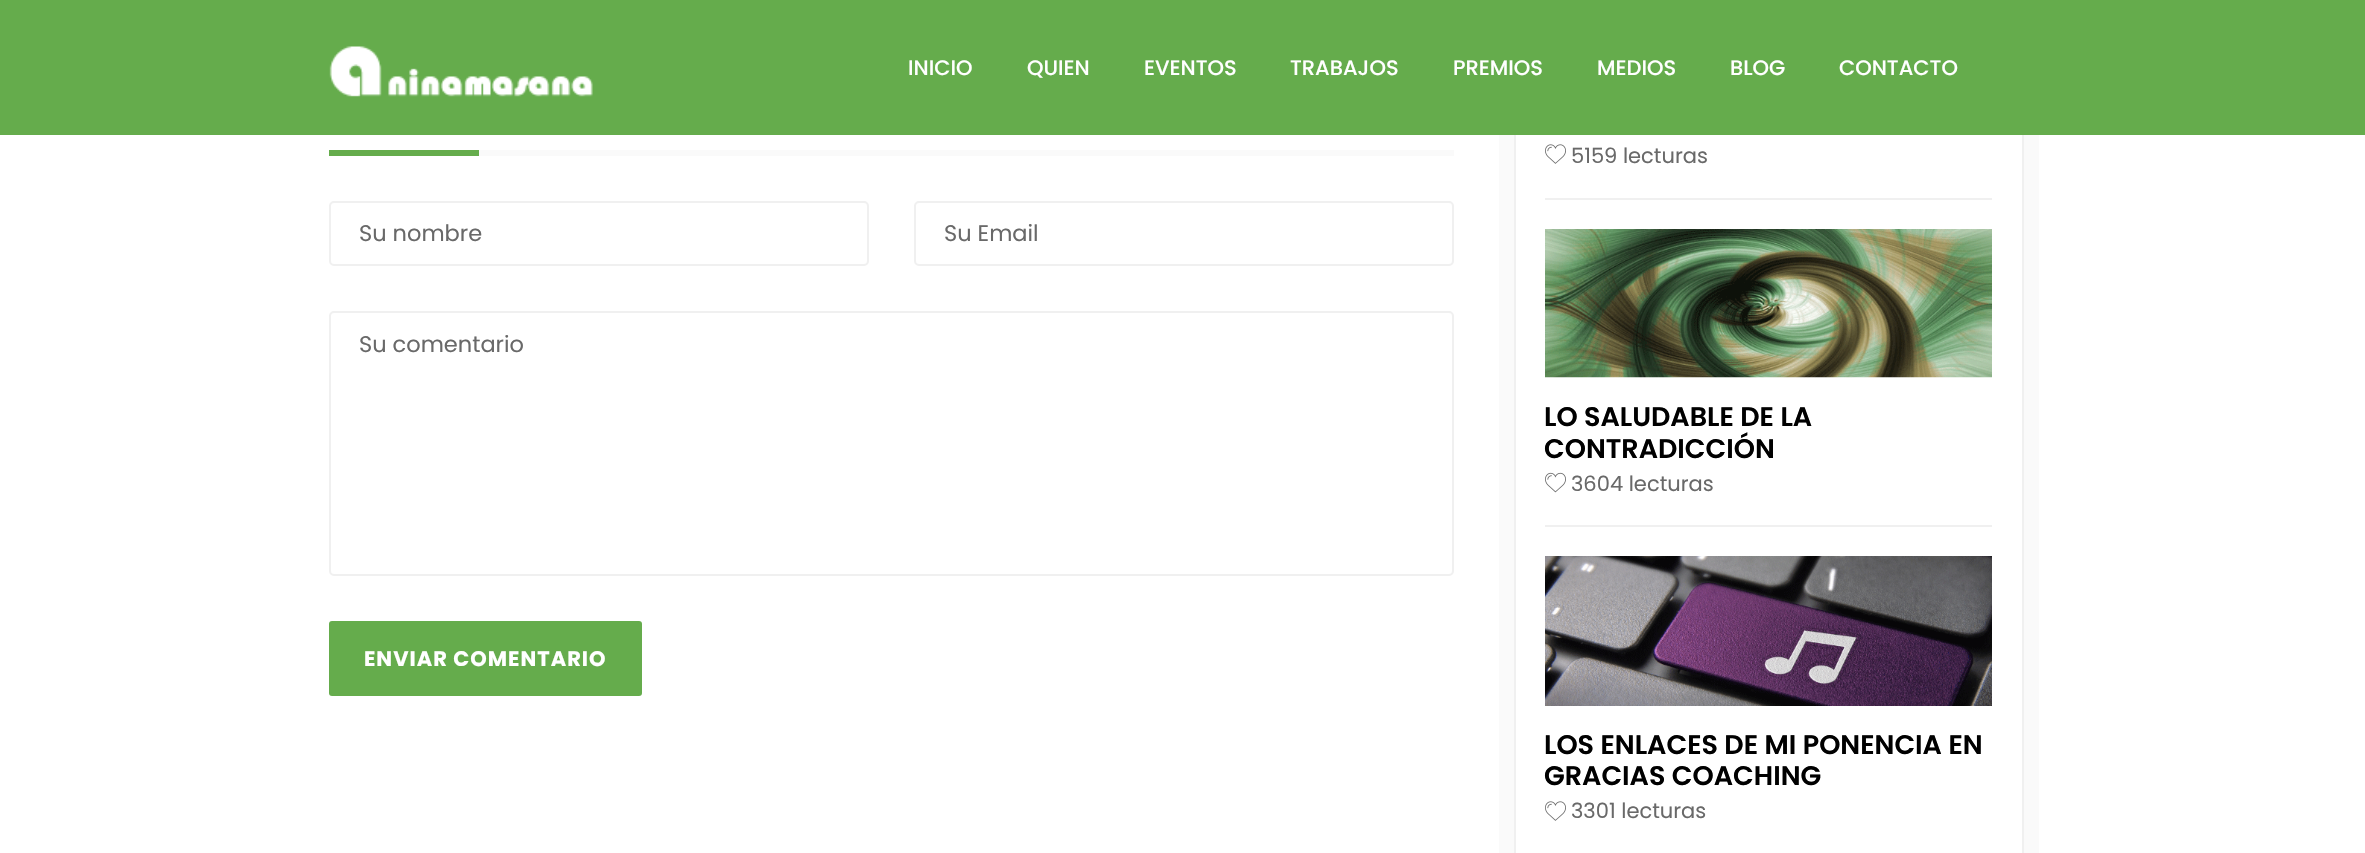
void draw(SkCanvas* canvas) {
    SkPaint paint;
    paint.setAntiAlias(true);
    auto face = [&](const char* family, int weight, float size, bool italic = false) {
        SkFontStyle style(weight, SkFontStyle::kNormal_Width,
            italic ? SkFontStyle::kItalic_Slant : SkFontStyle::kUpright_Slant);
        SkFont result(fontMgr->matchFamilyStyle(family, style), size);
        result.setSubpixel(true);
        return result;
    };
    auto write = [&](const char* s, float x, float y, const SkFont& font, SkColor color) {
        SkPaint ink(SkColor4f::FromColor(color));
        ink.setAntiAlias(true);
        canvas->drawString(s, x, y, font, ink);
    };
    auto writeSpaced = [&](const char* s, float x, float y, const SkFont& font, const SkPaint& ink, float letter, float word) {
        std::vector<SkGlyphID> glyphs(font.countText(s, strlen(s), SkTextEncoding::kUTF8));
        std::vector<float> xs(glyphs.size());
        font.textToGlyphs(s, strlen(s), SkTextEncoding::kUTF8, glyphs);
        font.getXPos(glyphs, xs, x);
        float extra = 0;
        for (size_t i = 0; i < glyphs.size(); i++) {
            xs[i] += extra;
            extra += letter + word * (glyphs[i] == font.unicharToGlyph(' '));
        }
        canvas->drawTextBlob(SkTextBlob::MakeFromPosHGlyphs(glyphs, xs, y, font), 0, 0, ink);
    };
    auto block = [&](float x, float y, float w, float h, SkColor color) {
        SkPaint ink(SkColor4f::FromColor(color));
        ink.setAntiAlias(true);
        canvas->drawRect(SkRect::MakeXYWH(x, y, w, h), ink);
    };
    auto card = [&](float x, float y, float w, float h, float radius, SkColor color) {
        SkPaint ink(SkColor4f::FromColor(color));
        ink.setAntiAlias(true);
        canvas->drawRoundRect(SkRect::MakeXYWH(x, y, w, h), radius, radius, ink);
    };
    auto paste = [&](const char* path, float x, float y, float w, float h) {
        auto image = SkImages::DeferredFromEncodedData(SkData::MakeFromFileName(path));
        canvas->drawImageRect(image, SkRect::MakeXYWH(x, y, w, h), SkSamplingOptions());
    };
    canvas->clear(SK_ColorWHITE);
    block(1499, 135, 540, 718, SkColorSetRGB(250, 250, 250));
    block(1516, 135, 506, 718, SK_ColorWHITE);
    paint.setStyle(SkPaint::kStroke_Style);
    paint.setStrokeWidth(2);
    paint.setColor(SkColorSetRGB(240, 240, 240));
    canvas->drawRect(SkRect::MakeXYWH(1515, -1, 508, 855), paint);
    block(0, 0, 2365, 135, SkColorSetRGB(101, 172, 76));
    paste("pic1.png", 329, 46, 264, 51);
    auto kFont1 = face("Poppins", 500, 21);
    write("INICIO", 908, 75, kFont1, SK_ColorWHITE);
    write("QUIEN", 1027, 75, kFont1, SK_ColorWHITE);
    write("EVENTOS", 1144, 75, kFont1, SK_ColorWHITE);
    write("TRABAJOS", 1290, 75, kFont1, SK_ColorWHITE);
    write("PREMIOS", 1453, 75, kFont1, SK_ColorWHITE);
    write("MEDIOS", 1597, 75, kFont1, SK_ColorWHITE);
    write("BLOG", 1730, 75, kFont1, SK_ColorWHITE);
    write("CONTACTO", 1839, 75, kFont1, SK_ColorWHITE);
    block(479, 150, 975, 6, SkColorSetRGB(250, 250, 250));
    block(329, 150, 150, 6, SkColorSetRGB(101, 172, 76));
    canvas->drawRoundRect(SkRect::MakeXYWH(330, 202, 538, 63), 4, 4, paint);
    auto kFont2 = face("Poppins", 400, 22.5f);
    write("Su nombre", 359, 241, kFont2, SkColorSetRGB(105, 105, 105));
    canvas->drawRoundRect(SkRect::MakeXYWH(915, 202, 538, 63), 4, 4, paint);
    write("Su Email", 944, 241, kFont2, SkColorSetRGB(105, 105, 105));
    canvas->drawRoundRect(SkRect::MakeXYWH(330, 312, 1123, 263), 4, 4, paint);
    write("Su comentario", 359, 352, kFont2, SkColorSetRGB(105, 105, 105));
    card(329, 621, 313, 75, 3, SkColorSetRGB(101, 172, 76));
    auto kFont3 = face("Poppins", 700, 21);
    paint.setStyle(SkPaint::kFill_Style);
    paint.setColor(SK_ColorWHITE);
    writeSpaced("ENVIAR COMENTARIO", 364, 666, kFont3, paint, 1, 0);
    block(1545, 198, 447, 2, SkColorSetRGB(240, 240, 240));
    paste("pic2.png", 1545, 144, 21, 20);
    auto kFont4 = face("Poppins", 400, 21);
    write("5159 lecturas", 1571, 163, kFont4, SkColorSetRGB(105, 105, 105));
    block(1545, 525, 447, 2, SkColorSetRGB(240, 240, 240));
    paste("pic3.png", 1545, 229, 447, 149);
    auto kFont5 = face("Poppins", 600, 27);
    write("LO SALUDABLE DE LA", 1544, 426, kFont5, SK_ColorBLACK);
    write("CONTRADICCIÓN", 1544, 458, kFont5, SK_ColorBLACK);
    paste("pic4.png", 1545, 472, 21, 21);
    write("3604 lecturas", 1571, 491, kFont4, SkColorSetRGB(105, 105, 105));
    paste("pic5.png", 1545, 556, 447, 150);
    write("LOS ENLACES DE MI PONENCIA EN", 1544, 754, kFont5, SK_ColorBLACK);
    write("GRACIAS COACHING", 1544, 785, kFont5, SK_ColorBLACK);
    paste("pic2.png", 1545, 801, 21, 20);
    write("3301 lecturas", 1571, 818, kFont4, SkColorSetRGB(105, 105, 105));
}
